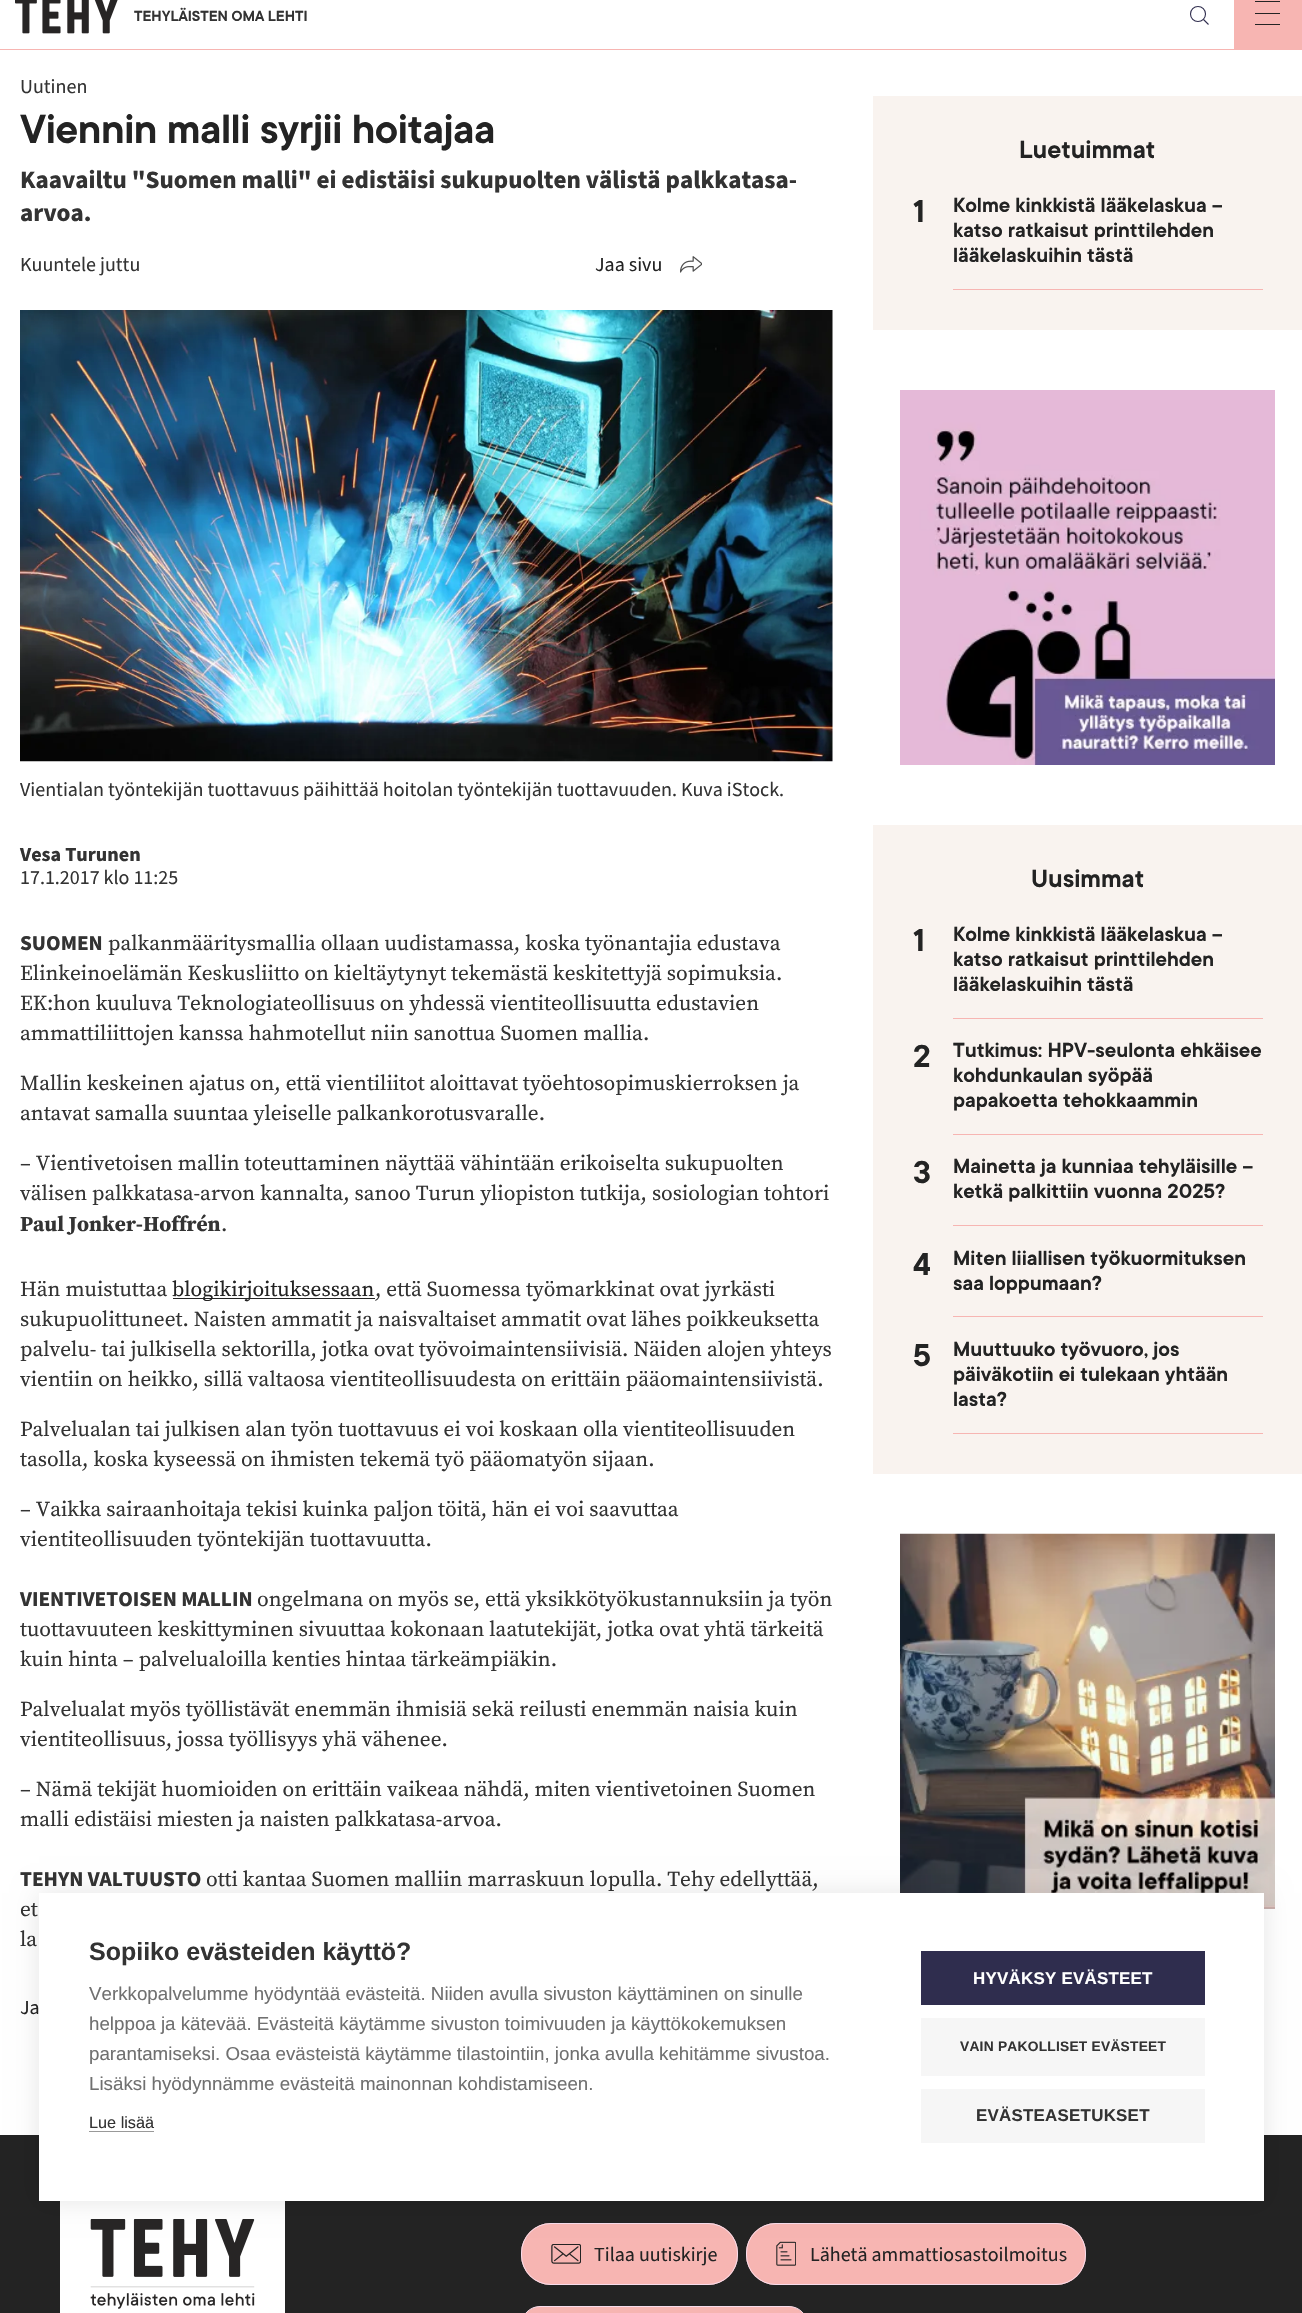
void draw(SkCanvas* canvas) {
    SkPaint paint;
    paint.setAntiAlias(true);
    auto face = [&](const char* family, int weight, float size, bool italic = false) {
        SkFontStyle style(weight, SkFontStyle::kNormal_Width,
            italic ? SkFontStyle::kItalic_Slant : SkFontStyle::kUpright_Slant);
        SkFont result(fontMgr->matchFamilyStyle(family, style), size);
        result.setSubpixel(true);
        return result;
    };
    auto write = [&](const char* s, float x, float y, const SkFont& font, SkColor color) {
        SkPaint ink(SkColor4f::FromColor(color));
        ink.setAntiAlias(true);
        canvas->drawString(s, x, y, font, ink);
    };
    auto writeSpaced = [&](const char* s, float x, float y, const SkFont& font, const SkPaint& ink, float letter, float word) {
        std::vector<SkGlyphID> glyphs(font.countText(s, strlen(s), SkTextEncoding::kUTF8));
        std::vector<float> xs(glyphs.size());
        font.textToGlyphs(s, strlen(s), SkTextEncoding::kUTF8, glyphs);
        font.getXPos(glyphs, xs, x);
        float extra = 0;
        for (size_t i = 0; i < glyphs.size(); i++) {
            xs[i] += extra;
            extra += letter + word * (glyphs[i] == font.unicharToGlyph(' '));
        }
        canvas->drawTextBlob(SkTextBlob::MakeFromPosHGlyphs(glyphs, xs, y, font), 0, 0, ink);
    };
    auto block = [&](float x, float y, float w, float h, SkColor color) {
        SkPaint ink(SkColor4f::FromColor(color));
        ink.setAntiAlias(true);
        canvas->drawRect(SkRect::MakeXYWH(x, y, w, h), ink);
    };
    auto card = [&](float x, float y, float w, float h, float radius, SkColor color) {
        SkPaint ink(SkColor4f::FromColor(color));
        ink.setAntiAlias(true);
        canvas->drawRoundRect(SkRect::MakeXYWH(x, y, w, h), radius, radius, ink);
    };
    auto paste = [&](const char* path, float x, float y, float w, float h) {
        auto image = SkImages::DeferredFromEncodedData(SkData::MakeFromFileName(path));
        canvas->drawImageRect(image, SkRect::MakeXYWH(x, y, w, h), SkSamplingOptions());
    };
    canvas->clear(SK_ColorWHITE);
    block(0, 49, 1302, 1, SkColorSetRGB(247, 181, 178));
    paste("pic1.png", 15, 0, 103, 34);
    auto kFont1 = face("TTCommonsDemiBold", 600, 16.25f);
    write("TEHYLÄISTEN OMA LEHTI", 134, 21, kFont1, SkColorSetRGB(51, 51, 51));
    paint.setStyle(SkPaint::kStroke_Style);
    paint.setStrokeWidth(1.1f);
    paint.setColor(SkColorSetRGB(47, 45, 78));
    canvas->drawCircle(1198, 14, 7.5f, paint);
    canvas->drawPath(SkPathBuilder().moveTo(1203.5f, 19.5f).lineTo(1208.5f, 24.5f).detach(), paint);
    block(1234, 0, 68, 49, SkColorSetRGB(247, 181, 178));
    block(1255, 1, 25, 1, SkColorSetRGB(35, 35, 35));
    block(1255, 13, 25, 1, SkColorSetRGB(35, 35, 35));
    block(1255, 24, 25, 1, SkColorSetRGB(35, 35, 35));
    auto kFont2 = face("Source Sans Pro", 400, 20);
    write("Uutinen", 20, 93, kFont2, SkColorSetRGB(51, 51, 51));
    auto kFont3 = face("TTCommonsDemiBold", 600, 45);
    paint.setStyle(SkPaint::kFill_Style);
    paint.setColor(SkColorSetRGB(35, 35, 35));
    writeSpaced("Viennin malli syrjii hoitajaa", 20, 143, kFont3, paint, -0.45f, 0);
    auto kFont4 = face("Source Sans Pro", 700, 25);
    write("Kaavailtu \"Suomen malli\" ei edistäisi sukupuolten välistä palkkatasa-", 20, 188, kFont4, SkColorSetRGB(51, 51, 51));
    write("arvoa.", 20, 221, kFont4, SkColorSetRGB(51, 51, 51));
    write("Kuuntele juttu", 20, 271, kFont2, SkColorSetRGB(51, 51, 51));
    write("Jaa sivu", 595, 271, kFont2, SkColorSetRGB(35, 35, 35));
    paste("pic2.png", 680, 256, 22, 17);
    paste("pic3.png", 20, 310, 813, 452);
    write("Vientialan työntekijän tuottavuus päihittää hoitolan työntekijän tuottavuuden. Kuva iStock.", 20, 796, kFont2, SkColorSetRGB(51, 51, 51));
    auto kFont5 = face("Source Sans Pro", 700, 20);
    write("Vesa Turunen", 20, 861, kFont5, SkColorSetRGB(51, 51, 51));
    write("17.1.2017 klo 11:25", 20, 884, kFont2, SkColorSetRGB(51, 51, 51));
    auto kFont6 = face("Source Sans Pro", 700, 21.25f);
    write("SUOMEN", 20, 950, kFont6, SkColorSetRGB(51, 51, 51));
    auto kFont7 = face("Source Serif Pro", 400, 21.25f);
    write("palkanmääritysmallia ollaan uudistamassa, koska työnantajia edustava", 108, 950, kFont7, SkColorSetRGB(51, 51, 51));
    write("Elinkeinoelämän Keskusliitto on kieltäytynyt tekemästä keskitettyjä sopimuksia.", 20, 980, kFont7, SkColorSetRGB(51, 51, 51));
    write("EK:hon kuuluva Teknologiateollisuus on yhdessä vientiteollisuutta edustavien", 20, 1010, kFont7, SkColorSetRGB(51, 51, 51));
    write("ammattiliittojen kanssa hahmotellut niin sanottua Suomen mallia.", 20, 1040, kFont7, SkColorSetRGB(51, 51, 51));
    write("Mallin keskeinen ajatus on, että vientiliitot aloittavat työehtosopimuskierroksen ja", 20, 1090, kFont7, SkColorSetRGB(51, 51, 51));
    write("antavat samalla suuntaa yleiselle palkankorotusvaralle.", 20, 1120, kFont7, SkColorSetRGB(51, 51, 51));
    write("– Vientivetoisen mallin toteuttaminen näyttää vähintään erikoiselta sukupuolten", 20, 1170, kFont7, SkColorSetRGB(51, 51, 51));
    write("välisen palkkatasa-arvon kannalta, sanoo Turun yliopiston tutkija, sosiologian tohtori", 20, 1200, kFont7, SkColorSetRGB(51, 51, 51));
    auto kFont8 = face("Source Serif Pro", 700, 21.25f);
    write("Paul Jonker-Hoffrén", 20, 1231, kFont8, SkColorSetRGB(51, 51, 51));
    write(".", 221, 1231, kFont7, SkColorSetRGB(51, 51, 51));
    write("Hän muistuttaa", 20, 1296, kFont7, SkColorSetRGB(51, 51, 51));
    block(173, 1298, 202, 1, SkColorSetRGB(35, 35, 35));
    write("blogikirjoituksessaan", 172, 1296, kFont7, SkColorSetRGB(35, 35, 35));
    write(", että Suomessa työmarkkinat ovat jyrkästi", 375, 1296, kFont7, SkColorSetRGB(51, 51, 51));
    write("sukupuolittuneet. Naisten ammatit ja naisvaltaiset ammatit ovat lähes poikkeuksetta", 20, 1326, kFont7, SkColorSetRGB(51, 51, 51));
    write("palvelu- tai julkisella sektorilla, jotka ovat työvoimaintensiivisiä. Näiden alojen yhteys", 20, 1356, kFont7, SkColorSetRGB(51, 51, 51));
    write("vientiin on heikko, sillä valtaosa vientiteollisuudesta on erittäin pääomaintensiivistä.", 20, 1386, kFont7, SkColorSetRGB(51, 51, 51));
    write("Palvelualan tai julkisen alan työn tuottavuus ei voi koskaan olla vientiteollisuuden", 20, 1436, kFont7, SkColorSetRGB(51, 51, 51));
    write("tasolla, koska kyseessä on ihmisten tekemä työ pääomatyön sijaan.", 20, 1466, kFont7, SkColorSetRGB(51, 51, 51));
    write("– Vaikka sairaanhoitaja tekisi kuinka paljon töitä, hän ei voi saavuttaa", 20, 1516, kFont7, SkColorSetRGB(51, 51, 51));
    write("vientiteollisuuden työntekijän tuottavuutta.", 20, 1546, kFont7, SkColorSetRGB(51, 51, 51));
    write("VIENTIVETOISEN MALLIN", 20, 1606, kFont6, SkColorSetRGB(51, 51, 51));
    write("ongelmana on myös se, että yksikkötyökustannuksiin ja työn", 257, 1606, kFont7, SkColorSetRGB(51, 51, 51));
    write("tuottavuuteen keskittyminen sivuuttaa kokonaan laatutekijät, jotka ovat yhtä tärkeitä", 20, 1636, kFont7, SkColorSetRGB(51, 51, 51));
    write("kuin hinta – palvelualoilla kenties hintaa tärkeämpiäkin.", 20, 1666, kFont7, SkColorSetRGB(51, 51, 51));
    write("Palvelualat myös työllistävät enemmän ihmisiä sekä reilusti enemmän naisia kuin", 20, 1716, kFont7, SkColorSetRGB(51, 51, 51));
    write("vientiteollisuus, jossa työllisyys yhä vähenee.", 20, 1746, kFont7, SkColorSetRGB(51, 51, 51));
    write("– Nämä tekijät huomioiden on erittäin vaikeaa nähdä, miten vientivetoinen Suomen", 20, 1796, kFont7, SkColorSetRGB(51, 51, 51));
    write("malli edistäisi miesten ja naisten palkkatasa-arvoa.", 20, 1826, kFont7, SkColorSetRGB(51, 51, 51));
    write("TEHYN VALTUUSTO", 20, 1886, kFont6, SkColorSetRGB(51, 51, 51));
    write("otti kantaa Suomen malliin marraskuun lopulla. Tehy edellyttää,", 206, 1886, kFont7, SkColorSetRGB(51, 51, 51));
    write("et", 20, 1916, kFont7, SkColorSetRGB(51, 51, 51));
    write("la", 20, 1946, kFont7, SkColorSetRGB(51, 51, 51));
    write("Ja", 20, 2014, kFont2, SkColorSetRGB(35, 35, 35));
    block(873, 96, 429, 234, SkColorSetRGB(249, 243, 239));
    auto kFont9 = face("TTCommonsDemiBold", 600, 27.5f);
    write("Luetuimmat", 1019, 158, kFont9, SkColorSetRGB(35, 35, 35));
    block(953, 289, 310, 1, SkColorSetRGB(247, 181, 178));
    auto kFont10 = face("TTCommonsDemiBold", 600, 35);
    write("1", 913, 222, kFont10, SkColorSetRGB(35, 35, 35));
    auto kFont11 = face("TTCommonsDemiBold", 600, 22.5f);
    write("Kolme kinkkistä lääkelaskua –", 953, 212, kFont11, SkColorSetRGB(35, 35, 35));
    write("katso ratkaisut printtilehden", 953, 237, kFont11, SkColorSetRGB(35, 35, 35));
    write("lääkelaskuihin tästä", 953, 262, kFont11, SkColorSetRGB(35, 35, 35));
    paste("pic4.png", 900, 390, 375, 375);
    block(873, 825, 429, 649, SkColorSetRGB(249, 243, 239));
    write("Uusimmat", 1031, 887, kFont9, SkColorSetRGB(35, 35, 35));
    block(953, 1018, 310, 1, SkColorSetRGB(247, 181, 178));
    write("1", 913, 951, kFont10, SkColorSetRGB(35, 35, 35));
    write("Kolme kinkkistä lääkelaskua –", 953, 941, kFont11, SkColorSetRGB(35, 35, 35));
    write("katso ratkaisut printtilehden", 953, 966, kFont11, SkColorSetRGB(35, 35, 35));
    write("lääkelaskuihin tästä", 953, 991, kFont11, SkColorSetRGB(35, 35, 35));
    block(953, 1134, 310, 1, SkColorSetRGB(247, 181, 178));
    write("2", 913, 1067, kFont10, SkColorSetRGB(35, 35, 35));
    write("Tutkimus: HPV-seulonta ehkäisee", 953, 1057, kFont11, SkColorSetRGB(35, 35, 35));
    write("kohdunkaulan syöpää", 953, 1082, kFont11, SkColorSetRGB(35, 35, 35));
    write("papakoetta tehokkaammin", 953, 1107, kFont11, SkColorSetRGB(35, 35, 35));
    block(953, 1225, 310, 1, SkColorSetRGB(247, 181, 178));
    write("3", 913, 1183, kFont10, SkColorSetRGB(35, 35, 35));
    write("Mainetta ja kunniaa tehyläisille –", 953, 1173, kFont11, SkColorSetRGB(35, 35, 35));
    write("ketkä palkittiin vuonna 2025?", 953, 1198, kFont11, SkColorSetRGB(35, 35, 35));
    block(953, 1316, 310, 1, SkColorSetRGB(247, 181, 178));
    write("4", 913, 1275, kFont10, SkColorSetRGB(35, 35, 35));
    write("Miten liiallisen työkuormituksen", 953, 1265, kFont11, SkColorSetRGB(35, 35, 35));
    write("saa loppumaan?", 953, 1290, kFont11, SkColorSetRGB(35, 35, 35));
    block(953, 1433, 310, 1, SkColorSetRGB(247, 181, 178));
    write("5", 913, 1366, kFont10, SkColorSetRGB(35, 35, 35));
    write("Muuttuuko työvuoro, jos", 953, 1356, kFont11, SkColorSetRGB(35, 35, 35));
    write("päiväkotiin ei tulekaan yhtään", 953, 1381, kFont11, SkColorSetRGB(35, 35, 35));
    write("lasta?", 953, 1406, kFont11, SkColorSetRGB(35, 35, 35));
    paste("pic5.png", 900, 1533, 375, 376);
    block(0, 2135, 1302, 178, SkColorSetRGB(35, 35, 35));
    block(60, 2201, 225, 112, SK_ColorWHITE);
    paste("pic6.png", 90, 2219, 165, 90);
    card(521, 2223, 217, 62, 30, SkColorSetRGB(247, 181, 178));
    paste("pic7.png", 551, 2244, 30, 20);
    paint.setStyle(SkPaint::kStroke_Style);
    paint.setStrokeWidth(1);
    paint.setColor(SkColorSetRGB(248, 220, 235));
    canvas->drawRoundRect(SkRect::MakeXYWH(521.5f, 2223.5f, 216, 61), 29.5f, 29.5f, paint);
    write("Tilaa uutiskirje", 594, 2261, kFont2, SkColorSetRGB(35, 35, 35));
    card(746, 2223, 340, 62, 30, SkColorSetRGB(247, 181, 178));
    paste("pic8.png", 776, 2241, 20, 25);
    canvas->drawRoundRect(SkRect::MakeXYWH(746.5f, 2223.5f, 339, 61), 29.5f, 29.5f, paint);
    write("Lähetä ammattiosastoilmoitus", 810, 2261, kFont2, SkColorSetRGB(35, 35, 35));
    paint.setStyle(SkPaint::kFill_Style);
    paint.setColor(SkColorSetRGB(247, 181, 178));
    canvas->drawRoundRect(SkRect::MakeXYWH(521.5f, 2306.5f, 286, 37), 29.5f, 29.5f, paint);
    paint.setStyle(SkPaint::kStroke_Style);
    paint.setColor(SkColorSetRGB(248, 220, 235));
    canvas->drawRoundRect(SkRect::MakeXYWH(521.5f, 2306.5f, 286, 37), 29.5f, 29.5f, paint);
    paint.setStyle(SkPaint::kFill_Style);
    paint.setColor(SkColorSetARGB(26, 0, 0, 0));
    paint.setMaskFilter(SkMaskFilter::MakeBlur(kNormal_SkBlurStyle, 12.5f));
    canvas->drawRect(SkRect::MakeXYWH(39, 1893, 1225, 308), paint);
    paint.setMaskFilter(nullptr);
    block(39, 1893, 1225, 308, SK_ColorWHITE);
    auto kFont12 = face("Liberation Sans", 700, 25);
    write("Sopiiko evästeiden käyttö?", 89, 1960, kFont12, SkColorSetRGB(51, 51, 51));
    auto kFont13 = face("Liberation Sans", 400, 18.75f);
    write("Verkkopalvelumme hyödyntää evästeitä. Niiden avulla sivuston käyttäminen on sinulle", 89, 2000, kFont13, SkColorSetRGB(112, 112, 112));
    write("helppoa ja kätevää. Evästeitä käytämme sivuston toimivuuden ja käyttökokemuksen", 89, 2030, kFont13, SkColorSetRGB(112, 112, 112));
    write("parantamiseksi. Osaa evästeistä käytämme tilastointiin, jonka avulla kehitämme sivustoa.", 89, 2060, kFont13, SkColorSetRGB(112, 112, 112));
    write("Lisäksi hyödynnämme evästeitä mainonnan kohdistamiseen.", 89, 2090, kFont13, SkColorSetRGB(112, 112, 112));
    auto kFont14 = face("Liberation Sans", 400, 16.25f);
    write("Lue lisää", 89, 2128, kFont14, SkColorSetRGB(51, 51, 51));
    block(89, 2131, 65, 1, SkColorSetRGB(153, 153, 153));
    block(921, 1951, 284, 54, SkColorSetRGB(47, 45, 78));
    auto kFont15 = face("Liberation Sans", 700, 16.9f);
    paint.setColor(SK_ColorWHITE);
    writeSpaced("HYVÄKSY EVÄSTEET", 973, 1984, kFont15, paint, 0.25f, 0);
    block(921, 2018, 284, 58, SkColorSetRGB(246, 246, 246));
    auto kFont16 = face("Liberation Sans", 700, 13.75f);
    paint.setColor(SkColorSetRGB(51, 51, 51));
    writeSpaced("VAIN PAKOLLISET EVÄSTEET", 960, 2051, kFont16, paint, 0.25f, 0);
    block(921, 2089, 284, 54, SkColorSetRGB(246, 246, 246));
    writeSpaced("EVÄSTEASETUKSET", 976, 2121, kFont15, paint, 0.25f, 0);
}
